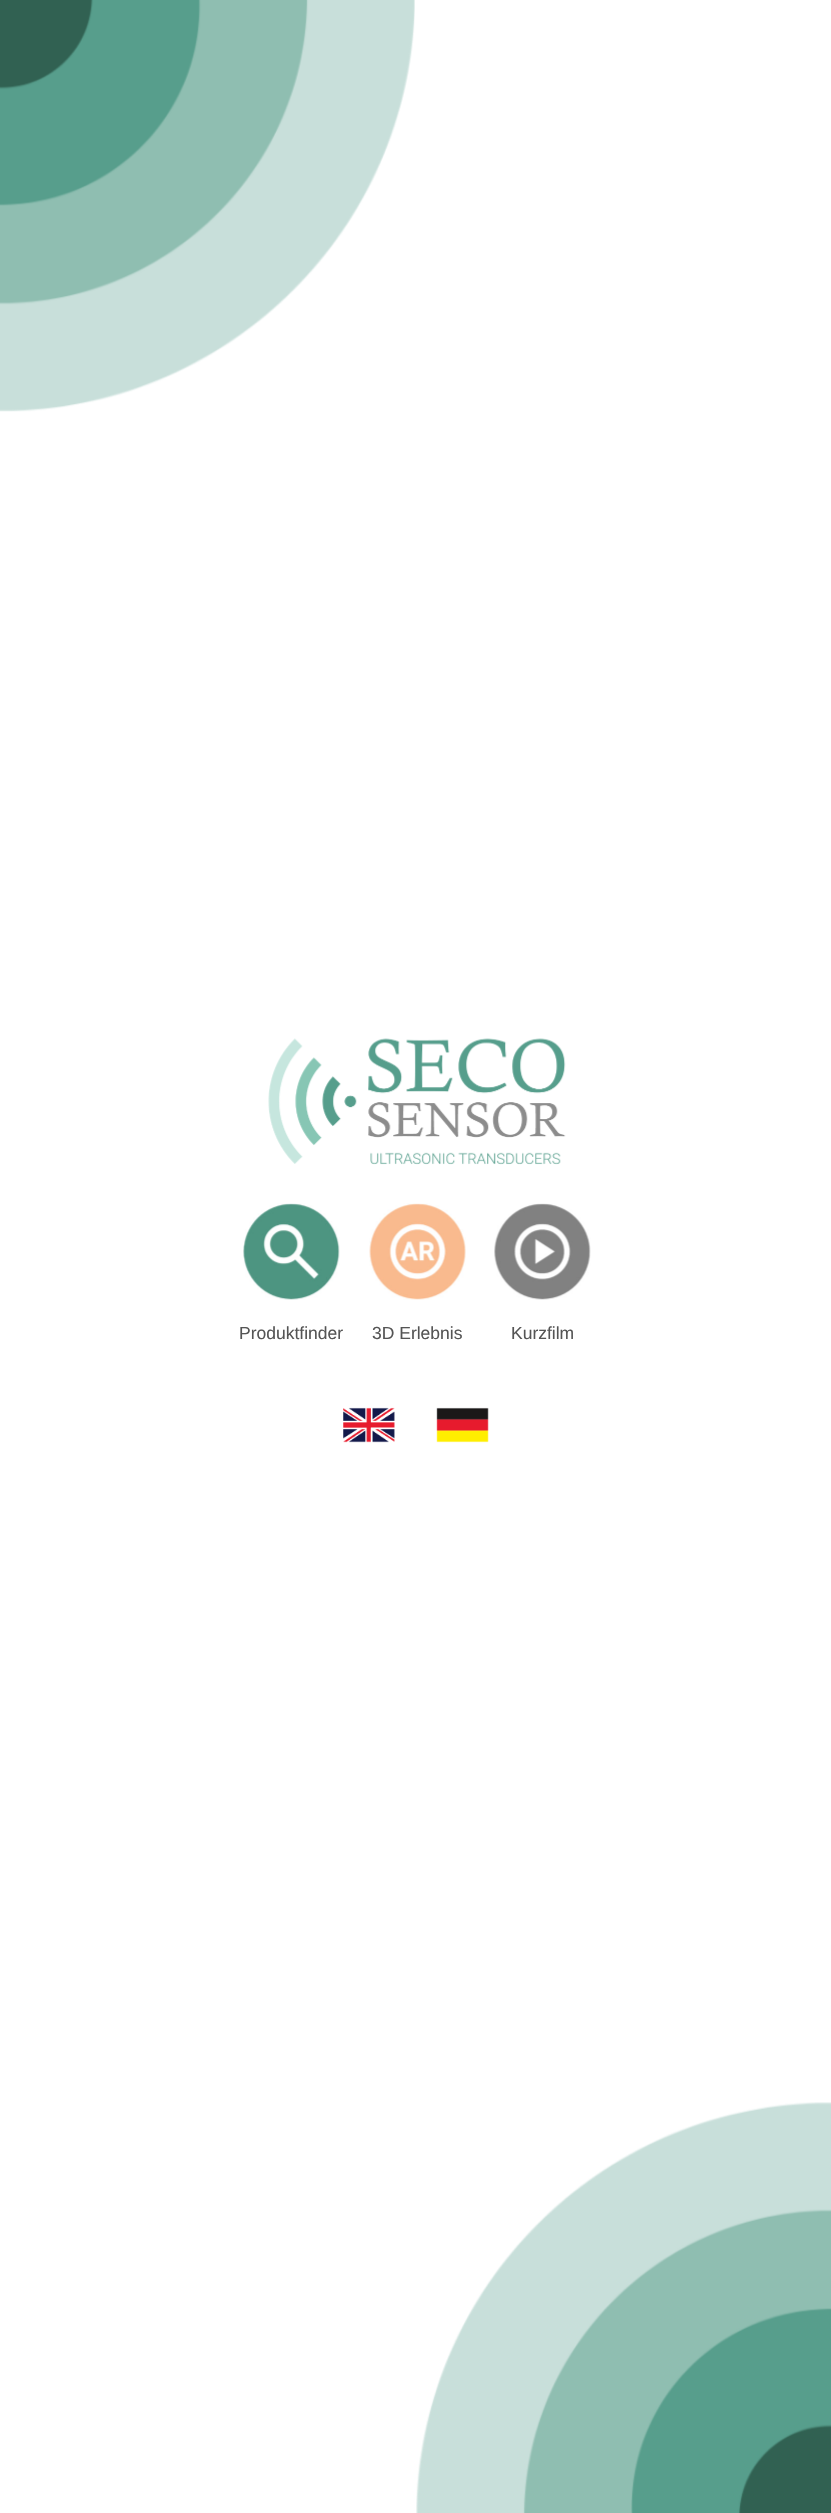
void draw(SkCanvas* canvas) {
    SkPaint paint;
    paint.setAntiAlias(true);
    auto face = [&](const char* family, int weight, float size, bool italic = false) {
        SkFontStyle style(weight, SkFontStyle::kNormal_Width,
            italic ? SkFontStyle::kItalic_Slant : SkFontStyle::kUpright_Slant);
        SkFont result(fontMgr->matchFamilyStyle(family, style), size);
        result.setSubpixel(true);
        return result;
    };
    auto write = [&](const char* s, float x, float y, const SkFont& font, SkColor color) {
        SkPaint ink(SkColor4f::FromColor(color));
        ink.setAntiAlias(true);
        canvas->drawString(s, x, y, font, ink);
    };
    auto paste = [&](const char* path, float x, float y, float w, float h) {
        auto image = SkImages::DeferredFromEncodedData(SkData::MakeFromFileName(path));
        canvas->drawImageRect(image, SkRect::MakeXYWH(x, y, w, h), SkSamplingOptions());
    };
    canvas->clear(SK_ColorWHITE);
    paste("pic1.png", 0, 0, 415, 412);
    paste("pic2.png", 416, 2102, 415, 411);
    paste("pic3.png", 268, 1038, 298, 127);
    paste("pic4.png", 243, 1203, 97, 97);
    auto kFont1 = face("Liberation Sans", 400, 17.5f);
    write("Produktfinder", 239, 1339, kFont1, SkColorSetRGB(85, 85, 85));
    paste("pic5.png", 369, 1203, 97, 97);
    write("3D Erlebnis", 372, 1339, kFont1, SkColorSetRGB(85, 85, 85));
    paste("pic6.png", 494, 1203, 97, 97);
    write("Kurzfilm", 511, 1339, kFont1, SkColorSetRGB(85, 85, 85));
    paste("pic7.png", 343, 1407, 52, 36);
    paste("pic8.png", 436, 1407, 53, 36);
}
